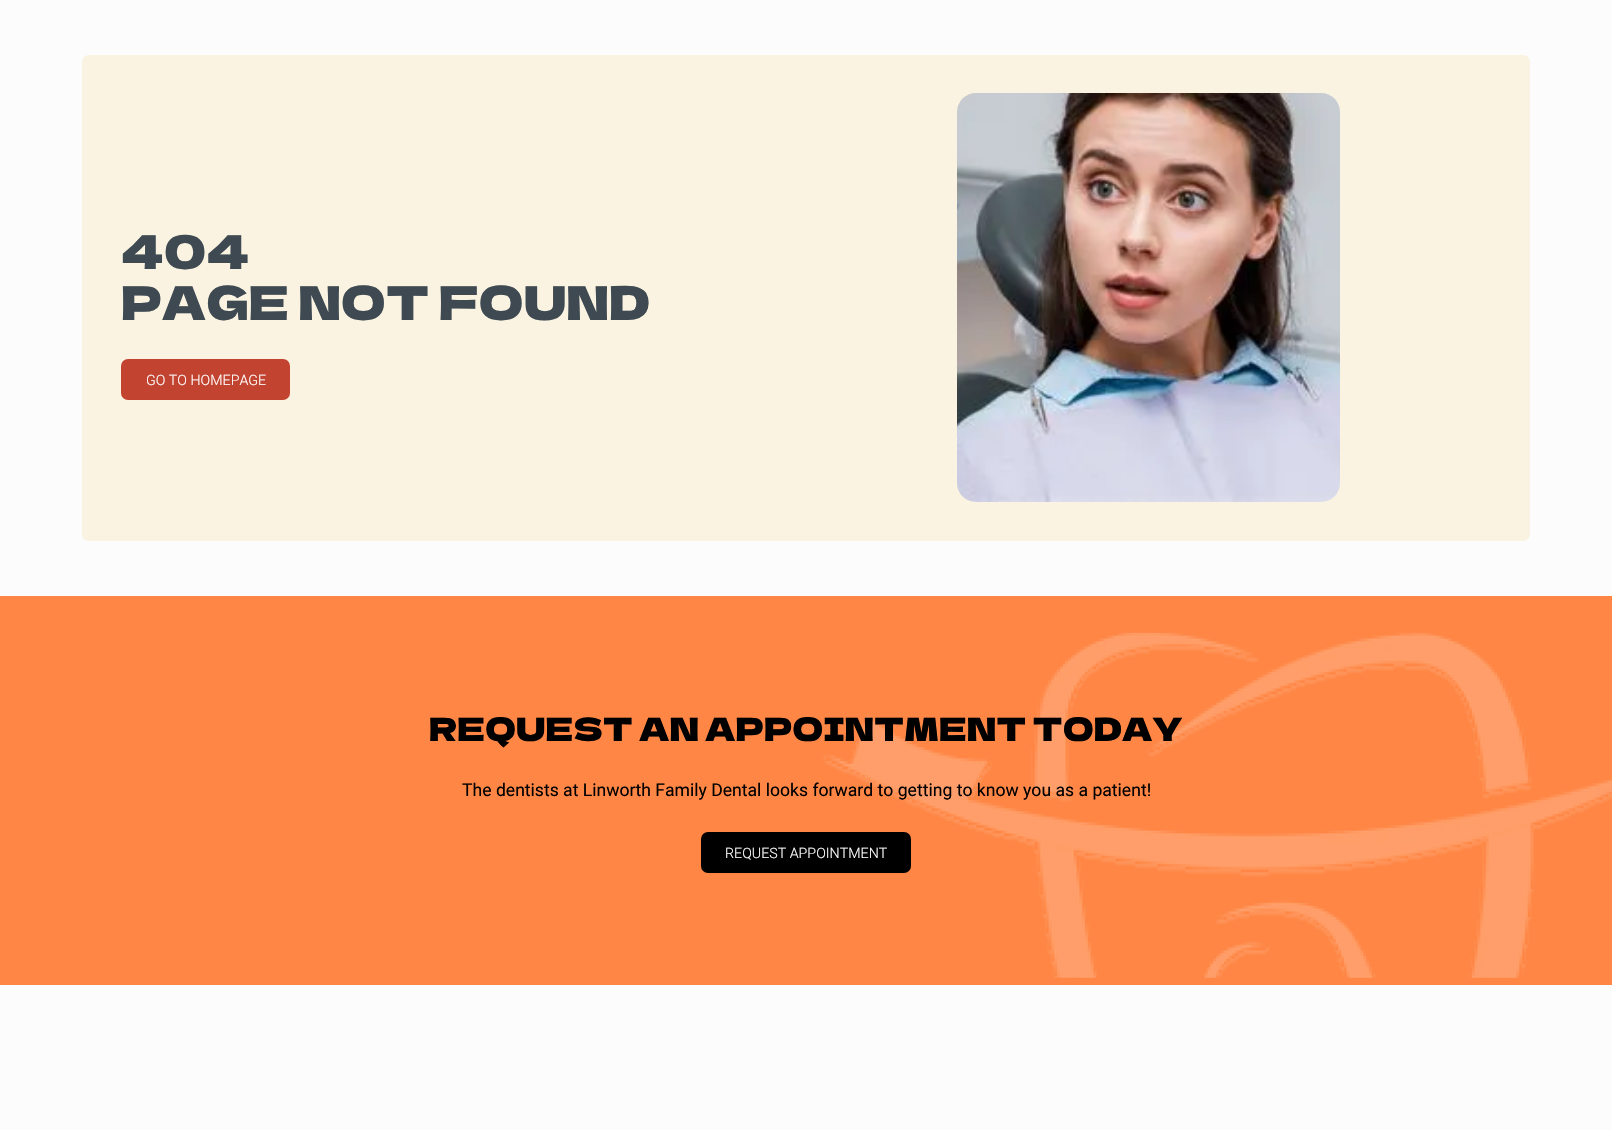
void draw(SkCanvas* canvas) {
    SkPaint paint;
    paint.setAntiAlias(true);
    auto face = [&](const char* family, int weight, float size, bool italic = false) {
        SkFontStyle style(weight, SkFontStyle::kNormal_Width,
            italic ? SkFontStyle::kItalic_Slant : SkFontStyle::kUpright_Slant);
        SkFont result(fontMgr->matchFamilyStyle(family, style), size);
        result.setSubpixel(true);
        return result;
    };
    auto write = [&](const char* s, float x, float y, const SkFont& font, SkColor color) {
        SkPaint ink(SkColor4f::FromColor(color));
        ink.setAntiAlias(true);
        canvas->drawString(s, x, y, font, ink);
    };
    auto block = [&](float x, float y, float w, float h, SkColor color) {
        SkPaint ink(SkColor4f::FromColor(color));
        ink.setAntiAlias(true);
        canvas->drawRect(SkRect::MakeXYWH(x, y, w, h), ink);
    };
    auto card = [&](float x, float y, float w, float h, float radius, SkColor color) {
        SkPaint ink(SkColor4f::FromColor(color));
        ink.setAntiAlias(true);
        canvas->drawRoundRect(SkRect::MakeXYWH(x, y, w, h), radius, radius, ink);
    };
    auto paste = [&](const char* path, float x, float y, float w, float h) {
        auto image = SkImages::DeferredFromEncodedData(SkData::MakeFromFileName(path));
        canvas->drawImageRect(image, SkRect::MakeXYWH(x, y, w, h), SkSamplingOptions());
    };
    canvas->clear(SkColorSetRGB(252, 252, 252));
    card(82, 55, 1448, 486, 7, SkColorSetRGB(250, 243, 225));
    auto kFont1 = face("Dela Gothic One", 400, 46.4f);
    write("404", 121, 269, kFont1, SkColorSetRGB(62, 73, 82));
    write("PAGE NOT FOUND", 121, 320, kFont1, SkColorSetRGB(62, 73, 82));
    card(121, 359, 169, 41, 7, SkColorSetRGB(194, 68, 48));
    auto kFont2 = face("Roboto", 300, 14.25f);
    write("GO TO HOMEPAGE", 146, 385, kFont2, SK_ColorWHITE);
    paste("pic1.png", 957, 93, 383, 409);
    block(0, 596, 1612, 389, SkColorSetRGB(255, 134, 68));
    paste("pic2.png", 822, 632, 790, 346);
    auto kFont3 = face("Dela Gothic One", 400, 32);
    write("REQUEST AN APPOINTMENT TODAY", 429, 741, kFont3, SK_ColorBLACK);
    auto kFont4 = face("Roboto", 400, 17.6f);
    write("The dentists at Linworth Family Dental looks forward to getting to know you as a patient!", 462, 796, kFont4, SK_ColorBLACK);
    card(701, 832, 210, 41, 7, SK_ColorBLACK);
    write("REQUEST APPOINTMENT", 725, 858, kFont2, SK_ColorWHITE);
}
